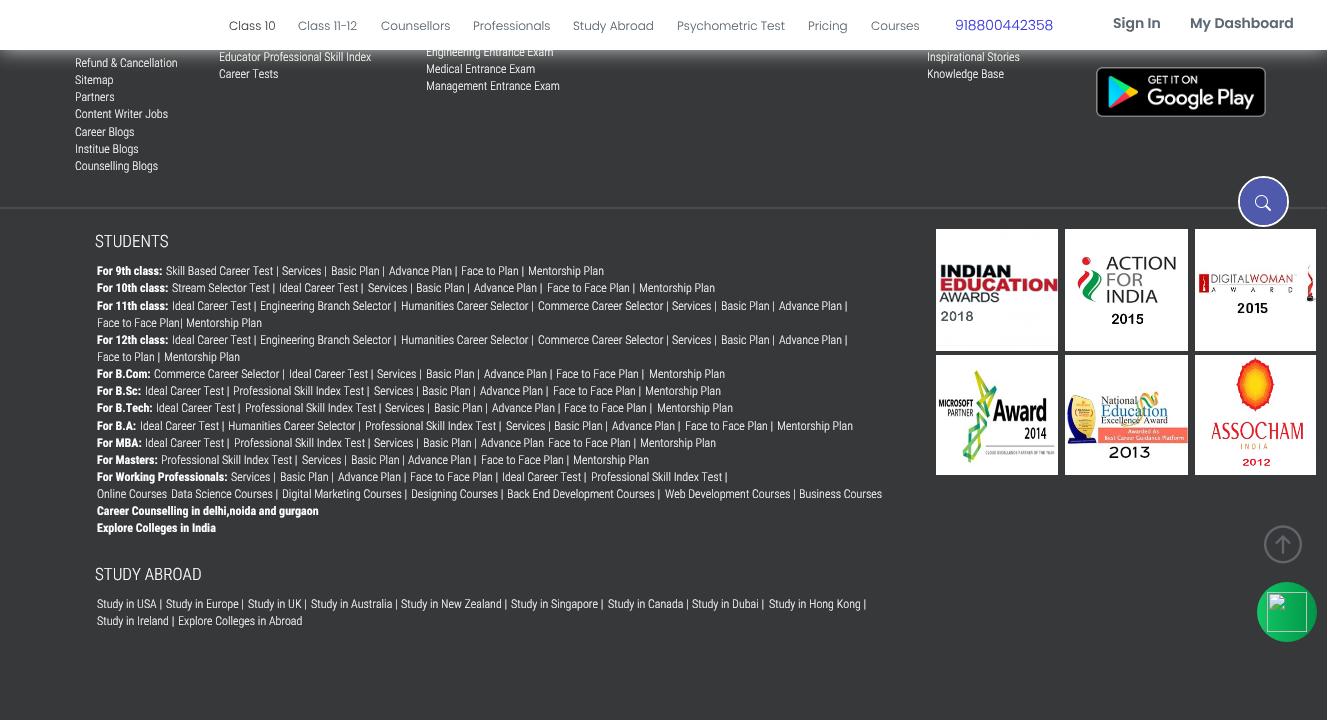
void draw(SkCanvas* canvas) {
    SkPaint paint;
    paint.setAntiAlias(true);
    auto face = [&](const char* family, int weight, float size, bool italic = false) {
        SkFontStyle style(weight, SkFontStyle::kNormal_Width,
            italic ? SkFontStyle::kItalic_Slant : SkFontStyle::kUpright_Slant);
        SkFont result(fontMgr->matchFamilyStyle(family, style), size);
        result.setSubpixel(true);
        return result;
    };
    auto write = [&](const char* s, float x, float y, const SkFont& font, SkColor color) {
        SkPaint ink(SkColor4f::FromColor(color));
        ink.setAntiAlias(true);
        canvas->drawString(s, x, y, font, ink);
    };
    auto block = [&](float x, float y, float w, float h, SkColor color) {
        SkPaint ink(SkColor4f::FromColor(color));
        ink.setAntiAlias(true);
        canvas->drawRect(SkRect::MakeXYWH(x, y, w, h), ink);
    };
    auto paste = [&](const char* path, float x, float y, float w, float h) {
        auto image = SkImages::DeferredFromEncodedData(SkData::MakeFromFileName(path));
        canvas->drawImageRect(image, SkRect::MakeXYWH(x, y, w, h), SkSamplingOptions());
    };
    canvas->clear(SkColorSetRGB(54, 56, 57));
    paste("pic1.png", 1096, 67, 170, 50);
    paint.setColor(SkColorSetRGB(204, 204, 204));
    paint.setMaskFilter(SkMaskFilter::MakeBlur(kNormal_SkBlurStyle, 10));
    canvas->drawRect(SkRect::MakeXYWH(0, 0, 1327, 50), paint);
    paint.setMaskFilter(nullptr);
    block(0, 0, 1327, 50, SK_ColorWHITE);
    auto kFont1 = face("Poppins", 300, 12);
    write("Class 10", 229, 30, kFont1, SkColorSetRGB(63, 68, 74));
    write("Class 11-12", 298, 30, kFont1, SkColorSetRGB(92, 104, 115));
    write("Counsellors", 381, 30, kFont1, SkColorSetRGB(92, 104, 115));
    write("Professionals", 473, 30, kFont1, SkColorSetRGB(92, 104, 115));
    write("Study Abroad", 573, 30, kFont1, SkColorSetRGB(92, 104, 115));
    write("Psychometric Test", 677, 30, kFont1, SkColorSetRGB(92, 104, 115));
    write("Pricing", 808, 30, kFont1, SkColorSetRGB(92, 104, 115));
    write("Courses", 871, 30, kFont1, SkColorSetRGB(92, 104, 115));
    auto kFont2 = face("Poppins", 300, 14);
    write("918800442358", 955, 30, kFont2, SkColorSetRGB(57, 57, 223));
    auto kFont3 = face("Poppins", 600, 14);
    write("Sign In", 1113, 28, kFont3, SkColorSetRGB(92, 104, 115));
    write("My Dashboard", 1190, 28, kFont3, SkColorSetRGB(92, 104, 115));
    auto kFont4 = face("Roboto Condensed", 300, 12);
    write("Refund & Cancellation", 75, 67, kFont4, SK_ColorWHITE);
    write("Sitemap", 75, 84, kFont4, SK_ColorWHITE);
    write("Partners", 75, 101, kFont4, SK_ColorWHITE);
    write("Content Writer Jobs", 75, 118, kFont4, SK_ColorWHITE);
    write("Career Blogs", 75, 136, kFont4, SK_ColorWHITE);
    write("Institue Blogs", 75, 153, kFont4, SK_ColorWHITE);
    write("Counselling Blogs", 75, 170, kFont4, SK_ColorWHITE);
    write("Educator Professional Skill Index", 219, 61, kFont4, SK_ColorWHITE);
    write("Career Tests", 219, 78, kFont4, SK_ColorWHITE);
    write("Engineering Entrance Exam", 426, 56, kFont4, SK_ColorWHITE);
    write("Medical Entrance Exam", 426, 73, kFont4, SK_ColorWHITE);
    write("Management Entrance Exam", 426, 90, kFont4, SK_ColorWHITE);
    write("Inspirational Stories", 927, 61, kFont4, SK_ColorWHITE);
    write("Knowledge Base", 927, 78, kFont4, SK_ColorWHITE);
    block(0, 207, 1327, 2, SkColorSetRGB(75, 76, 77));
    auto kFont5 = face("Roboto Condensed", 300, 17);
    write("STUDENTS", 95, 247, kFont5, SK_ColorWHITE);
    auto kFont6 = face("Roboto Condensed", 700, 12);
    write("For 9th class:", 97, 275, kFont6, SK_ColorWHITE);
    write("Skill Based Career Test |", 166, 275, kFont4, SK_ColorWHITE);
    write("Services |", 282, 275, kFont4, SK_ColorWHITE);
    write("Basic Plan |", 331, 275, kFont4, SK_ColorWHITE);
    write("Advance Plan |", 389, 275, kFont4, SK_ColorWHITE);
    write("Face to Plan |", 461, 275, kFont4, SK_ColorWHITE);
    write("Mentorship Plan", 528, 275, kFont4, SK_ColorWHITE);
    write("For 10th class:", 97, 292, kFont6, SK_ColorWHITE);
    write("Stream Selector Test |", 172, 292, kFont4, SK_ColorWHITE);
    write("Ideal Career Test |", 279, 292, kFont4, SK_ColorWHITE);
    write("Services |", 368, 292, kFont4, SK_ColorWHITE);
    write("Basic Plan |", 416, 292, kFont4, SK_ColorWHITE);
    write("Advance Plan |", 474, 292, kFont4, SK_ColorWHITE);
    write("Face to Face Plan |", 547, 292, kFont4, SK_ColorWHITE);
    write("Mentorship Plan", 639, 292, kFont4, SK_ColorWHITE);
    write("For 11th class:", 97, 310, kFont6, SK_ColorWHITE);
    write("Ideal Career Test |", 172, 310, kFont4, SK_ColorWHITE);
    write("Engineering Branch Selector |", 260, 310, kFont4, SK_ColorWHITE);
    write("Humanities Career Selector |", 401, 310, kFont4, SK_ColorWHITE);
    write("Commerce Career Selector |", 538, 310, kFont4, SK_ColorWHITE);
    write("Services |", 672, 310, kFont4, SK_ColorWHITE);
    write("Basic Plan |", 721, 310, kFont4, SK_ColorWHITE);
    write("Advance Plan |", 779, 310, kFont4, SK_ColorWHITE);
    write("Face to Face Plan|", 97, 327, kFont4, SK_ColorWHITE);
    write("Mentorship Plan", 186, 327, kFont4, SK_ColorWHITE);
    write("For 12th class:", 97, 344, kFont6, SK_ColorWHITE);
    write("Ideal Career Test |", 172, 344, kFont4, SK_ColorWHITE);
    write("Engineering Branch Selector |", 260, 344, kFont4, SK_ColorWHITE);
    write("Humanities Career Selector |", 401, 344, kFont4, SK_ColorWHITE);
    write("Commerce Career Selector |", 538, 344, kFont4, SK_ColorWHITE);
    write("Services |", 672, 344, kFont4, SK_ColorWHITE);
    write("Basic Plan |", 721, 344, kFont4, SK_ColorWHITE);
    write("Advance Plan |", 779, 344, kFont4, SK_ColorWHITE);
    write("Face to Plan |", 97, 361, kFont4, SK_ColorWHITE);
    write("Mentorship Plan", 164, 361, kFont4, SK_ColorWHITE);
    write("For B.Com:", 97, 378, kFont6, SK_ColorWHITE);
    write("Commerce Career Selector |", 154, 378, kFont4, SK_ColorWHITE);
    write("Ideal Career Test |", 289, 378, kFont4, SK_ColorWHITE);
    write("Services |", 377, 378, kFont4, SK_ColorWHITE);
    write("Basic Plan |", 426, 378, kFont4, SK_ColorWHITE);
    write("Advance Plan |", 484, 378, kFont4, SK_ColorWHITE);
    write("Face to Face Plan |", 556, 378, kFont4, SK_ColorWHITE);
    write("Mentorship Plan", 649, 378, kFont4, SK_ColorWHITE);
    write("For B.Sc:", 97, 395, kFont6, SK_ColorWHITE);
    write("Ideal Career Test |", 145, 395, kFont4, SK_ColorWHITE);
    write("Professional Skill Index Test |", 233, 395, kFont4, SK_ColorWHITE);
    write("Services |", 374, 395, kFont4, SK_ColorWHITE);
    write("Basic Plan |", 422, 395, kFont4, SK_ColorWHITE);
    write("Advance Plan |", 480, 395, kFont4, SK_ColorWHITE);
    write("Face to Face Plan |", 553, 395, kFont4, SK_ColorWHITE);
    write("Mentorship Plan", 645, 395, kFont4, SK_ColorWHITE);
    write("For B.Tech:", 97, 412, kFont6, SK_ColorWHITE);
    write("Ideal Career Test |", 156, 412, kFont4, SK_ColorWHITE);
    write("Professional Skill Index Test |", 245, 412, kFont4, SK_ColorWHITE);
    write("Services |", 385, 412, kFont4, SK_ColorWHITE);
    write("Basic Plan |", 434, 412, kFont4, SK_ColorWHITE);
    write("Advance Plan |", 492, 412, kFont4, SK_ColorWHITE);
    write("Face to Face Plan |", 564, 412, kFont4, SK_ColorWHITE);
    write("Mentorship Plan", 657, 412, kFont4, SK_ColorWHITE);
    write("For B.A:", 97, 430, kFont6, SK_ColorWHITE);
    write("Ideal Career Test |", 140, 430, kFont4, SK_ColorWHITE);
    write("Humanities Career Selector |", 228, 430, kFont4, SK_ColorWHITE);
    write("Professional Skill Index Test |", 365, 430, kFont4, SK_ColorWHITE);
    write("Services |", 506, 430, kFont4, SK_ColorWHITE);
    write("Basic Plan |", 554, 430, kFont4, SK_ColorWHITE);
    write("Advance Plan |", 612, 430, kFont4, SK_ColorWHITE);
    write("Face to Face Plan |", 685, 430, kFont4, SK_ColorWHITE);
    write("Mentorship Plan", 777, 430, kFont4, SK_ColorWHITE);
    write("For MBA:", 97, 447, kFont6, SK_ColorWHITE);
    write("Ideal Career Test |", 145, 447, kFont4, SK_ColorWHITE);
    write("Professional Skill Index Test |", 234, 447, kFont4, SK_ColorWHITE);
    write("Services |", 374, 447, kFont4, SK_ColorWHITE);
    write("Basic Plan |", 423, 447, kFont4, SK_ColorWHITE);
    write("Advance Plan", 481, 447, kFont4, SK_ColorWHITE);
    write("Face to Face Plan |", 548, 447, kFont4, SK_ColorWHITE);
    write("Mentorship Plan", 640, 447, kFont4, SK_ColorWHITE);
    write("For Masters:", 97, 464, kFont6, SK_ColorWHITE);
    write("Professional Skill Index Test |", 161, 464, kFont4, SK_ColorWHITE);
    write("Services |", 302, 464, kFont4, SK_ColorWHITE);
    write("Basic Plan |", 351, 464, kFont4, SK_ColorWHITE);
    write("Advance Plan |", 408, 464, kFont4, SK_ColorWHITE);
    write("Face to Face Plan |", 481, 464, kFont4, SK_ColorWHITE);
    write("Mentorship Plan", 573, 464, kFont4, SK_ColorWHITE);
    write("For Working Professionals:", 97, 481, kFont6, SK_ColorWHITE);
    write("Services |", 231, 481, kFont4, SK_ColorWHITE);
    write("Basic Plan |", 280, 481, kFont4, SK_ColorWHITE);
    write("Advance Plan |", 338, 481, kFont4, SK_ColorWHITE);
    write("Face to Face Plan |", 410, 481, kFont4, SK_ColorWHITE);
    write("Ideal Career Test |", 502, 481, kFont4, SK_ColorWHITE);
    write("Professional Skill Index Test |", 591, 481, kFont4, SK_ColorWHITE);
    write("Online Courses", 97, 498, kFont4, SK_ColorWHITE);
    write("Data Science Courses |", 171, 498, kFont4, SK_ColorWHITE);
    write("Digital Marketing Courses |", 282, 498, kFont4, SK_ColorWHITE);
    write("Designing Courses |", 411, 498, kFont4, SK_ColorWHITE);
    write("Back End Development Courses |", 507, 498, kFont4, SK_ColorWHITE);
    write("Web Development Courses |", 665, 498, kFont4, SK_ColorWHITE);
    write("Business Courses", 799, 498, kFont4, SK_ColorWHITE);
    write("Career Counselling in delhi,noida and gurgaon", 97, 515, kFont6, SK_ColorWHITE);
    write("Explore Colleges in India", 97, 532, kFont6, SK_ColorWHITE);
    write("STUDY ABROAD", 95, 580, kFont5, SK_ColorWHITE);
    write("Study in USA |", 97, 608, kFont4, SK_ColorWHITE);
    write("Study in Europe |", 166, 608, kFont4, SK_ColorWHITE);
    write("Study in UK |", 248, 608, kFont4, SK_ColorWHITE);
    write("Study in Australia |", 311, 608, kFont4, SK_ColorWHITE);
    write("Study in New Zealand |", 401, 608, kFont4, SK_ColorWHITE);
    write("Study in Singapore |", 511, 608, kFont4, SK_ColorWHITE);
    write("Study in Canada |", 608, 608, kFont4, SK_ColorWHITE);
    write("Study in Dubai |", 692, 608, kFont4, SK_ColorWHITE);
    write("Study in Hong Kong |", 769, 608, kFont4, SK_ColorWHITE);
    write("Study in Ireland |", 97, 625, kFont4, SK_ColorWHITE);
    write("Explore Colleges in Abroad", 178, 625, kFont4, SK_ColorWHITE);
    paste("pic2.png", 936, 229, 380, 246);
    paste("pic3.png", 1264, 525, 38, 39);
    paint.setStyle(SkPaint::kStroke_Style);
    paint.setStrokeWidth(2);
    paint.setColor(SkColorSetRGB(78, 89, 173));
    canvas->drawRoundRect(SkRect::MakeXYWH(1242, 181, 42, 38), 19, 19, paint);
    paint.setColor(SK_ColorWHITE);
    canvas->drawCircle(1263.5f, 201.5f, 24.5f, paint);
    paint.setStyle(SkPaint::kFill_Style);
    paint.setColor(SkColorSetRGB(79, 90, 173));
    canvas->drawCircle(1263.5f, 201.5f, 23.5f, paint);
    paste("pic4.png", 1255, 195, 16, 16);
    paste("pic5.png", 1257, 582, 60, 60);
}
